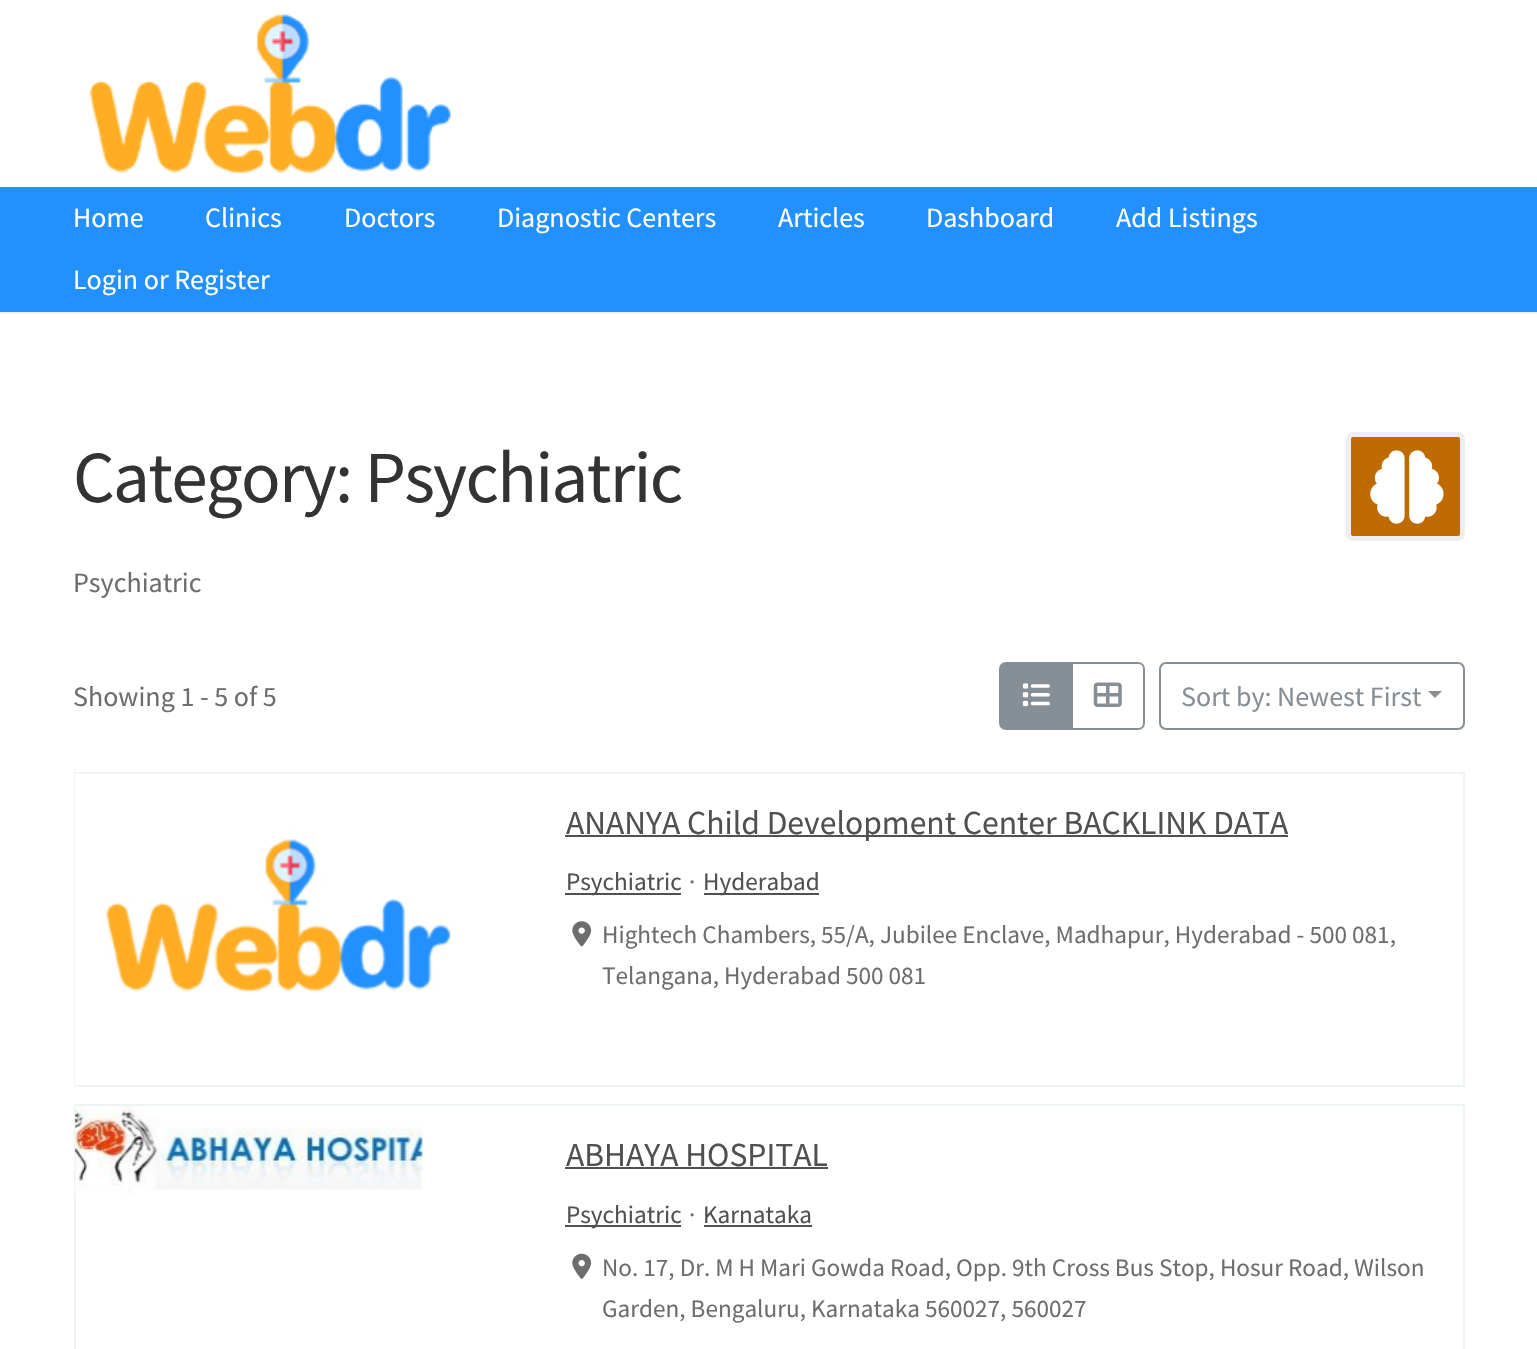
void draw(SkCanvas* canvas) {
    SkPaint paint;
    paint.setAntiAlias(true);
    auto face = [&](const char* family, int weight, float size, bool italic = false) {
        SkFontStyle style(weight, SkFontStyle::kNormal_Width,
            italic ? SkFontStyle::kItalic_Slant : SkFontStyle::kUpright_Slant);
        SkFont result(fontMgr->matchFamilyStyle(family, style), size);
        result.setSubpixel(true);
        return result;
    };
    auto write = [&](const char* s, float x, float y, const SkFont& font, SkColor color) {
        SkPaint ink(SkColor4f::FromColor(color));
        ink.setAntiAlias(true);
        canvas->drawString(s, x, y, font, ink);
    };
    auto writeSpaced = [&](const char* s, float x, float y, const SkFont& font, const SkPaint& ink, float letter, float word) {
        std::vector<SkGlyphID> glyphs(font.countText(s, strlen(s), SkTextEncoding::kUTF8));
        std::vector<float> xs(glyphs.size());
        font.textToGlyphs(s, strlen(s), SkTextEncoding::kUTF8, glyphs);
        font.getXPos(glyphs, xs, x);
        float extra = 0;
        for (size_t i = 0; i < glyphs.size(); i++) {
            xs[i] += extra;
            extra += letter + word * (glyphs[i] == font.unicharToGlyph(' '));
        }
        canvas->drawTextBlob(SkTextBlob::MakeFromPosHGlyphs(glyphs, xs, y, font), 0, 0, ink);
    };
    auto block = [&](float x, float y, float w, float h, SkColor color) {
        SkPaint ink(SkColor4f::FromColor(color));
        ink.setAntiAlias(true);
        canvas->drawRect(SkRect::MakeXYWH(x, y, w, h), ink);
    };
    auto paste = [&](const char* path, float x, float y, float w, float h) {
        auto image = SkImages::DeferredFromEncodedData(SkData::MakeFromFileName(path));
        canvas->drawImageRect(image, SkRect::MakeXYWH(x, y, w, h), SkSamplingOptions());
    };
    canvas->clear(SK_ColorWHITE);
    block(0, 312, 1537, 2, SkColorSetRGB(240, 240, 240));
    paste("pic1.png", 89, 14, 362, 159);
    block(0, 187, 1537, 125, SkColorSetRGB(35, 144, 255));
    auto kFont1 = face("Source Sans Pro", 400, 28);
    write("Home", 73, 227, kFont1, SK_ColorWHITE);
    write("Clinics", 205, 227, kFont1, SK_ColorWHITE);
    write("Doctors", 344, 227, kFont1, SK_ColorWHITE);
    write("Diagnostic Centers", 497, 227, kFont1, SK_ColorWHITE);
    write("Articles", 778, 227, kFont1, SK_ColorWHITE);
    write("Dashboard", 926, 227, kFont1, SK_ColorWHITE);
    write("Add Listings", 1116, 227, kFont1, SK_ColorWHITE);
    write("Login or Register", 73, 289, kFont1, SK_ColorWHITE);
    auto kFont2 = face("Source Sans Pro", 400, 73.25f);
    paint.setColor(SkColorSetRGB(51, 51, 51));
    writeSpaced("Category: Psychiatric", 73, 502, kFont2, paint, -1.75f, 0);
    paint.setColor(SkColorSetRGB(189, 107, 2));
    canvas->drawRoundRect(SkRect::MakeXYWH(1348.5f, 434.5f, 114, 104), 4.5f, 4.5f, paint);
    paint.setStyle(SkPaint::kStroke_Style);
    paint.setStrokeWidth(5);
    paint.setColor(SkColorSetRGB(238, 238, 238));
    canvas->drawRoundRect(SkRect::MakeXYWH(1348.5f, 434.5f, 114, 104), 4.5f, 4.5f, paint);
    paste("pic2.png", 1370, 450, 74, 74);
    write("Psychiatric", 73, 592, kFont1, SkColorSetRGB(109, 109, 109));
    write("Showing 1 - 5 of 5", 73, 706, kFont1, SkColorSetRGB(109, 109, 109));
    paint.setStrokeWidth(2);
    paint.setColor(SkColorSetRGB(134, 142, 150));
    canvas->drawPath(SkPathBuilder().moveTo(1072, 663).lineTo(1138, 663).cubicTo(1141.5f, 663, 1144, 665.5f, 1144, 669).lineTo(1144, 723).cubicTo(1144, 726.5f, 1141.5f, 729, 1138, 729).lineTo(1072, 729).close().detach(), paint);
    paint.setStyle(SkPaint::kFill_Style);
    canvas->drawPath(SkPathBuilder().moveTo(1006, 663).lineTo(1072, 663).lineTo(1072, 729).lineTo(1006, 729).cubicTo(1002.5f, 729, 1000, 726.5f, 1000, 723).lineTo(1000, 669).cubicTo(1000, 665.5f, 1002.5f, 663, 1006, 663).close().detach(), paint);
    paint.setStyle(SkPaint::kStroke_Style);
    canvas->drawPath(SkPathBuilder().moveTo(1006, 663).lineTo(1072, 663).lineTo(1072, 729).lineTo(1006, 729).cubicTo(1002.5f, 729, 1000, 726.5f, 1000, 723).lineTo(1000, 669).cubicTo(1000, 665.5f, 1002.5f, 663, 1006, 663).close().detach(), paint);
    paste("pic3.png", 1022, 683, 28, 24);
    paste("pic4.png", 1093, 682, 29, 25);
    canvas->drawRoundRect(SkRect::MakeXYWH(1160, 663, 304, 66), 6, 6, paint);
    write("Sort by: Newest First", 1181, 706, kFont1, SkColorSetRGB(134, 142, 150));
    paint.setStyle(SkPaint::kFill_Style);
    canvas->drawPath(SkPathBuilder().moveTo(1428, 691).lineTo(1442, 691).lineTo(1435, 698).close().detach(), paint);
    paint.setStyle(SkPaint::kStroke_Style);
    paint.setColor(SkColorSetRGB(238, 243, 246));
    canvas->drawRect(SkRect::MakeXYWH(75, 773, 1389, 313), paint);
    block(75, 774, 1, 311, SK_ColorWHITE);
    paste("pic5.png", 75, 773, 420, 219);
    block(565, 835, 723, 2, SkColorSetRGB(80, 80, 80));
    auto kFont3 = face("Source Sans Pro", 400, 33.6f);
    write("ANANYA Child Development Center BACKLINK DATA", 566, 834, kFont3, SkColorSetRGB(80, 80, 80));
    block(565, 893, 116, 2, SkColorSetRGB(80, 80, 80));
    auto kFont4 = face("Source Sans Pro", 400, 25.2f);
    write("Psychiatric", 566, 890, kFont4, SkColorSetRGB(80, 80, 80));
    write("·", 689, 890, kFont4, SkColorSetRGB(109, 109, 109));
    block(704, 893, 115, 2, SkColorSetRGB(80, 80, 80));
    write("Hyderabad", 703, 890, kFont4, SkColorSetRGB(80, 80, 80));
    paste("pic6.png", 572, 921, 20, 26);
    write("Hightech Chambers, 55/A, Jubilee Enclave, Madhapur, Hyderabad - 500 081,", 602, 943, kFont4, SkColorSetRGB(109, 109, 109));
    write("Telangana, Hyderabad 500 081", 602, 984, kFont4, SkColorSetRGB(109, 109, 109));
    canvas->drawRect(SkRect::MakeXYWH(75, 1105, 1389, 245), paint);
    paste("pic7.png", 75, 1106, 348, 88);
    write("ABHAYA HOSPITAL", 566, 1166, kFont3, SkColorSetRGB(80, 80, 80));
    block(565, 1167, 263, 2, SkColorSetRGB(80, 80, 80));
    block(565, 1225, 116, 2, SkColorSetRGB(80, 80, 80));
    write("Psychiatric", 566, 1223, kFont4, SkColorSetRGB(80, 80, 80));
    write("·", 689, 1223, kFont4, SkColorSetRGB(109, 109, 109));
    write("Karnataka", 703, 1223, kFont4, SkColorSetRGB(80, 80, 80));
    block(704, 1225, 108, 2, SkColorSetRGB(80, 80, 80));
    paste("pic8.png", 572, 1253, 20, 26);
    write("No. 17, Dr. M H Mari Gowda Road, Opp. 9th Cross Bus Stop, Hosur Road, Wilson", 602, 1276, kFont4, SkColorSetRGB(109, 109, 109));
    write("Garden, Bengaluru, Karnataka 560027, 560027", 602, 1317, kFont4, SkColorSetRGB(109, 109, 109));
}
